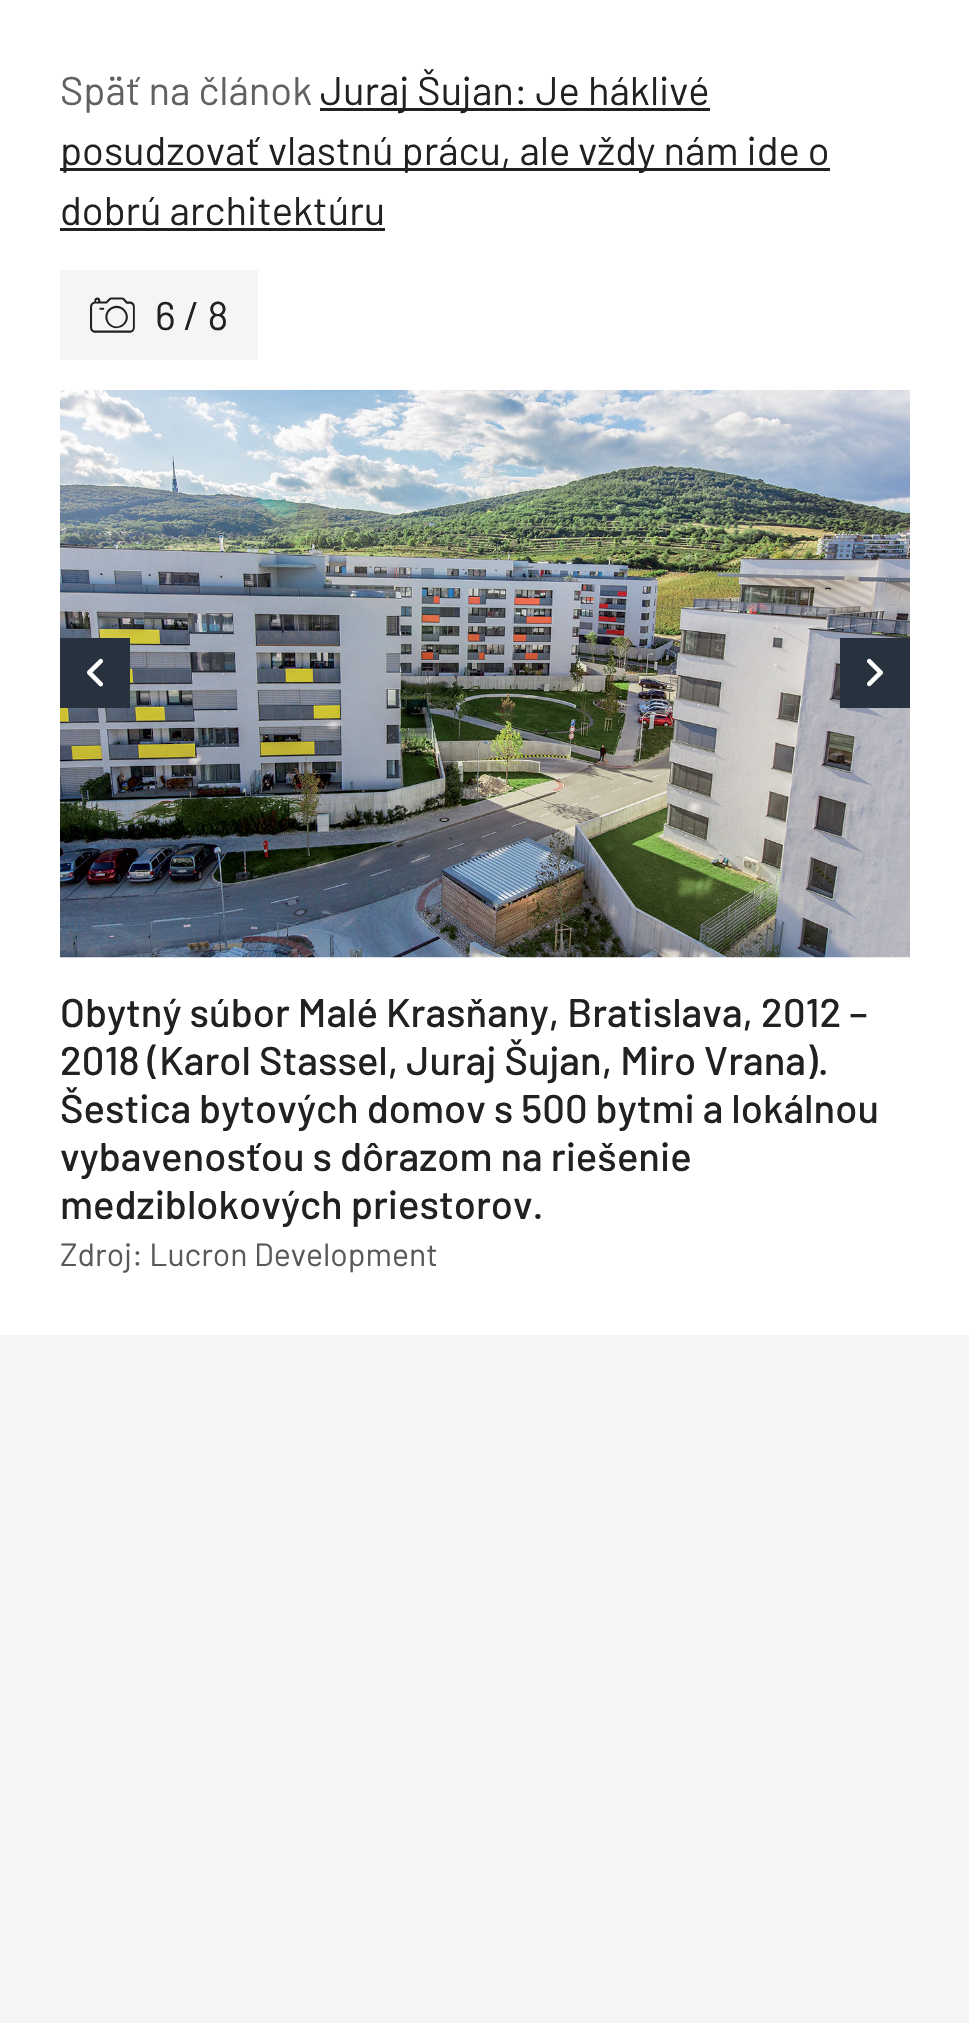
void draw(SkCanvas* canvas) {
    SkPaint paint;
    paint.setAntiAlias(true);
    auto face = [&](const char* family, int weight, float size, bool italic = false) {
        SkFontStyle style(weight, SkFontStyle::kNormal_Width,
            italic ? SkFontStyle::kItalic_Slant : SkFontStyle::kUpright_Slant);
        SkFont result(fontMgr->matchFamilyStyle(family, style), size);
        result.setSubpixel(true);
        return result;
    };
    auto write = [&](const char* s, float x, float y, const SkFont& font, SkColor color) {
        SkPaint ink(SkColor4f::FromColor(color));
        ink.setAntiAlias(true);
        canvas->drawString(s, x, y, font, ink);
    };
    auto block = [&](float x, float y, float w, float h, SkColor color) {
        SkPaint ink(SkColor4f::FromColor(color));
        ink.setAntiAlias(true);
        canvas->drawRect(SkRect::MakeXYWH(x, y, w, h), ink);
    };
    auto paste = [&](const char* path, float x, float y, float w, float h) {
        auto image = SkImages::DeferredFromEncodedData(SkData::MakeFromFileName(path));
        canvas->drawImageRect(image, SkRect::MakeXYWH(x, y, w, h), SkSamplingOptions());
    };
    canvas->clear(SK_ColorWHITE);
    auto kFont1 = face("Barlow", 400, 40);
    write("Späť na článok", 60, 105, kFont1, SkColorSetRGB(97, 97, 97));
    block(320, 108, 390, 3, SkColorSetRGB(33, 33, 33));
    write("Juraj Šujan: Je háklivé", 320, 105, kFont1, SkColorSetRGB(33, 33, 33));
    block(60, 168, 770, 3, SkColorSetRGB(33, 33, 33));
    write("posudzovať vlastnú prácu, ale vždy nám ide o", 60, 165, kFont1, SkColorSetRGB(33, 33, 33));
    write("dobrú architektúru", 60, 225, kFont1, SkColorSetRGB(33, 33, 33));
    block(60, 228, 325, 3, SkColorSetRGB(33, 33, 33));
    block(60, 270, 198, 90, SkColorSetRGB(245, 245, 245));
    paste("pic1.png", 90, 297, 45, 36);
    write("6 / 8", 155, 330, kFont1, SkColorSetRGB(33, 33, 33));
    paste("pic2.png", 60, 390, 850, 568);
    block(60, 638, 70, 70, SkColorSetRGB(40, 49, 62));
    paste("pic3.png", 87, 658, 16, 29);
    block(840, 638, 70, 70, SkColorSetRGB(40, 49, 62));
    paste("pic4.png", 867, 658, 16, 29);
    auto kFont2 = face("Barlow", 500, 40);
    write("Obytný súbor Malé Krasňany, Bratislava, 2012 –", 60, 1027, kFont2, SkColorSetRGB(33, 33, 33));
    write("2018 (Karol Stassel, Juraj Šujan, Miro Vrana).", 60, 1075, kFont2, SkColorSetRGB(33, 33, 33));
    write("Šestica bytových domov s 500 bytmi a lokálnou", 60, 1123, kFont2, SkColorSetRGB(33, 33, 33));
    write("vybavenosťou s dôrazom na riešenie", 60, 1171, kFont2, SkColorSetRGB(33, 33, 33));
    write("medziblokových priestorov.", 60, 1219, kFont2, SkColorSetRGB(33, 33, 33));
    auto kFont3 = face("Barlow", 400, 32);
    write("Zdroj: Lucron Development", 60, 1266, kFont3, SkColorSetRGB(89, 89, 89));
    block(0, 1335, 969, 688, SkColorSetRGB(245, 245, 245));
}
